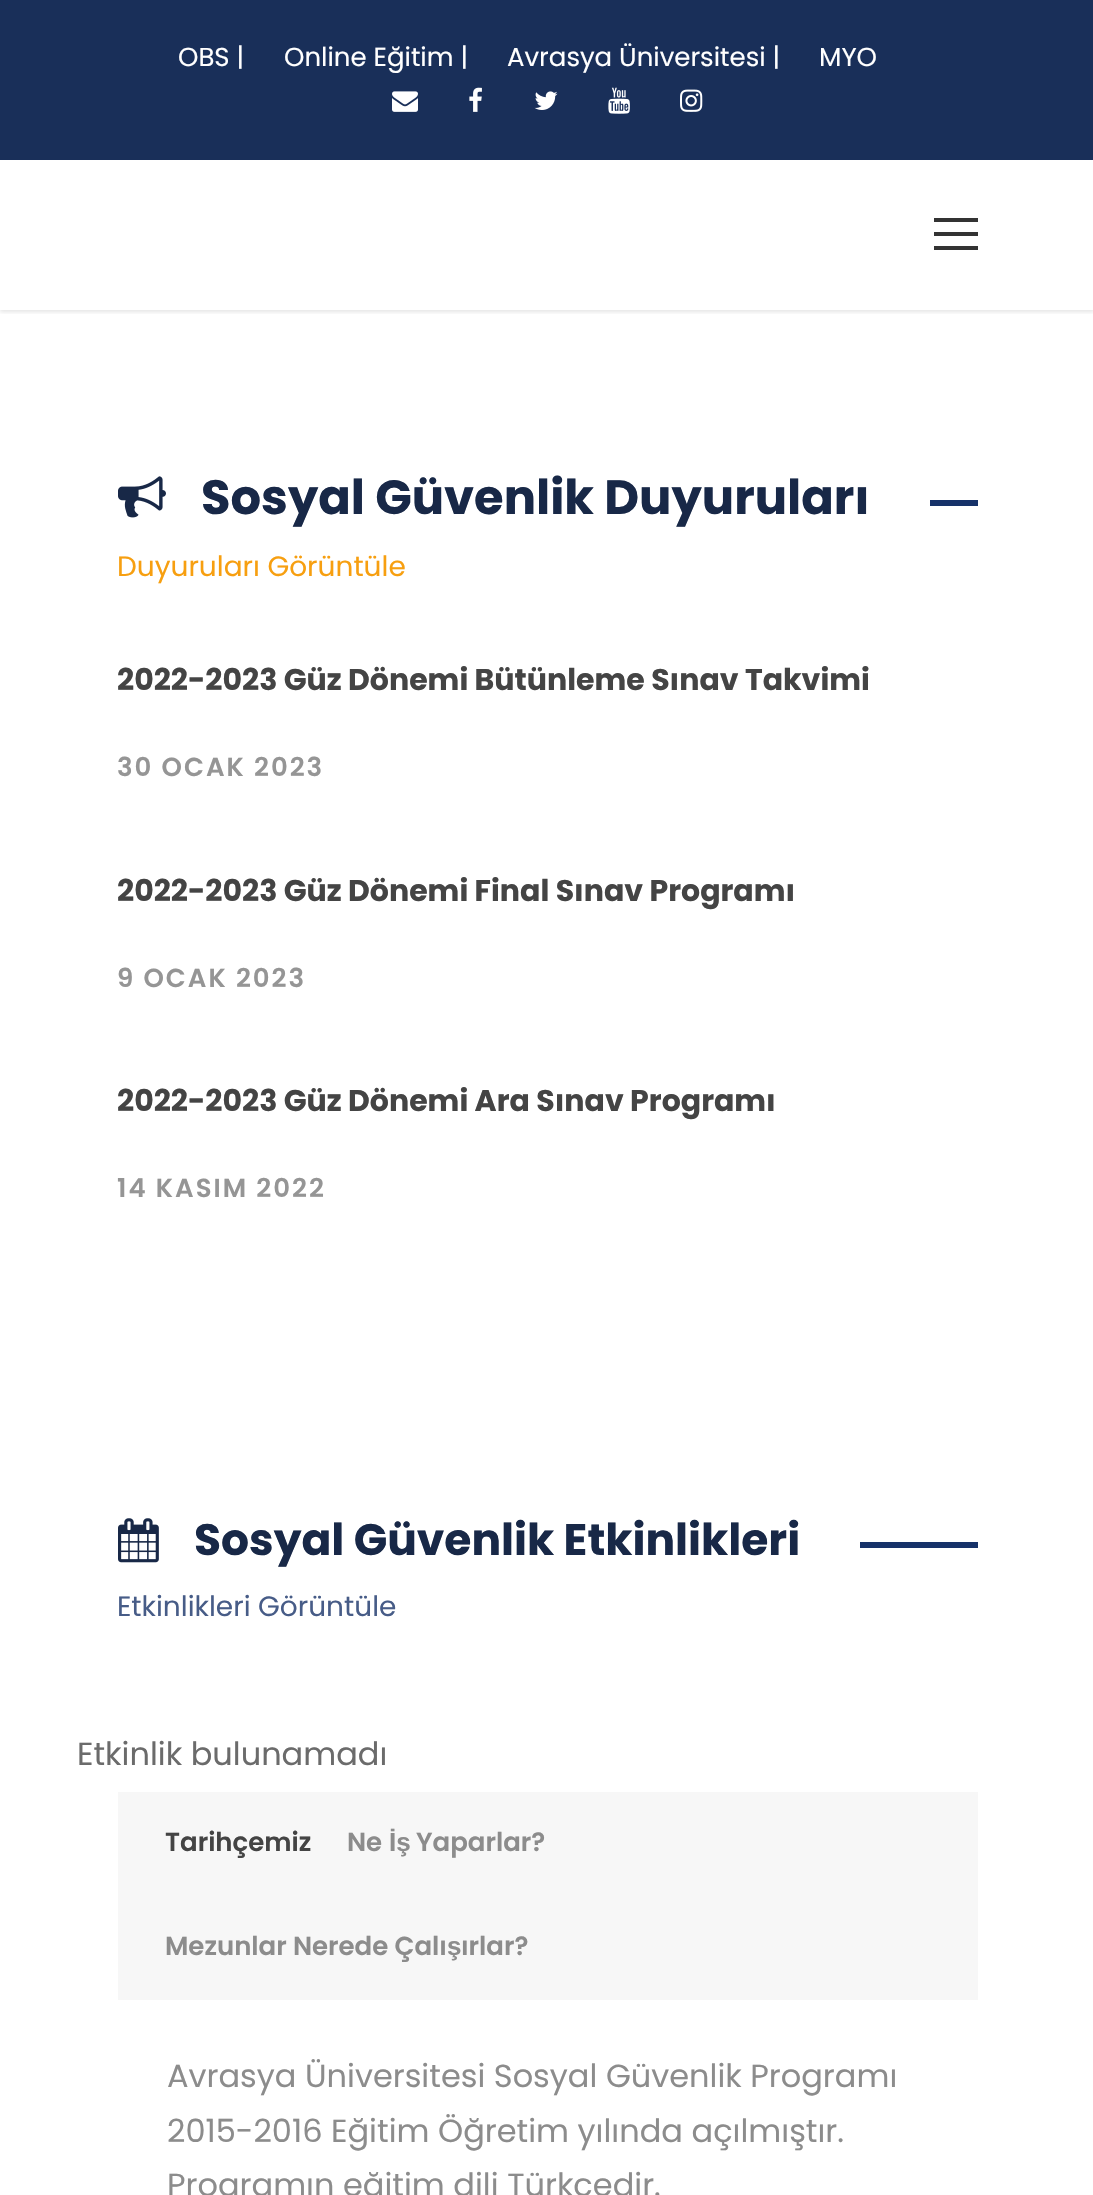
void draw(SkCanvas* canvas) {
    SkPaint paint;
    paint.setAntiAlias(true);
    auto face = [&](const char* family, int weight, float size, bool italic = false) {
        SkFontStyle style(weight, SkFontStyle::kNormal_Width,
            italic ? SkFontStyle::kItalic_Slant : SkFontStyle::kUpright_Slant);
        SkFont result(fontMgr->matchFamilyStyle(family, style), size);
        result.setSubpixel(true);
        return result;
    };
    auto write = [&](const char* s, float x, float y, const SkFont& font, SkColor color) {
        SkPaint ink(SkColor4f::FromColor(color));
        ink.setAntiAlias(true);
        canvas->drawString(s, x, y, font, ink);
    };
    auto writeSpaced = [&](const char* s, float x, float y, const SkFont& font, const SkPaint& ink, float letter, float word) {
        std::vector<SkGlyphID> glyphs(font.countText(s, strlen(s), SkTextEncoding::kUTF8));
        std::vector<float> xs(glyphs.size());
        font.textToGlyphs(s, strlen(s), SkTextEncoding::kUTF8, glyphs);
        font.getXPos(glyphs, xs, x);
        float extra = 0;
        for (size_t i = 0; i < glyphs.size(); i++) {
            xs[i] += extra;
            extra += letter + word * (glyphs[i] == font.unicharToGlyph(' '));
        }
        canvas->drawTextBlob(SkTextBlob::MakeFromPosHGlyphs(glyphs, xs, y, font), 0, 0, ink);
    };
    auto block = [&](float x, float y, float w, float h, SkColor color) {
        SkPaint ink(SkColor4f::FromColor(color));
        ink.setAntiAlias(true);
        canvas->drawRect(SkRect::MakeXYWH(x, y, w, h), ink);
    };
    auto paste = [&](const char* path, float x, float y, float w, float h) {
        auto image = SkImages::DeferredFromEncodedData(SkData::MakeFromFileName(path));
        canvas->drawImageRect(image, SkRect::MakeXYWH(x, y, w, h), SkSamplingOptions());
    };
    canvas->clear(SK_ColorWHITE);
    block(0, 0, 1093, 160, SkColorSetRGB(25, 47, 89));
    auto kFont1 = face("Poppins", 400, 26);
    write("OBS |", 178, 66, kFont1, SK_ColorWHITE);
    write("Online Eğitim |", 284, 66, kFont1, SK_ColorWHITE);
    write("Avrasya Üniversitesi |", 507, 66, kFont1, SK_ColorWHITE);
    write("MYO", 819, 66, kFont1, SK_ColorWHITE);
    paste("pic1.png", 392, 91, 26, 21);
    paste("pic2.png", 469, 87, 13, 25);
    paste("pic3.png", 534, 91, 24, 19);
    paste("pic4.png", 608, 87, 22, 27);
    paste("pic5.png", 680, 89, 23, 23);
    canvas->save();
    canvas->clipRect(SkRect::MakeXYWH(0, 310, 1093, 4));
    paint.setColor(SkColorSetARGB(26, 0, 0, 0));
    paint.setMaskFilter(SkMaskFilter::MakeBlur(kNormal_SkBlurStyle, 2));
    canvas->drawRect(SkRect::MakeXYWH(0, 162, 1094, 150), paint);
    paint.setMaskFilter(nullptr);
    canvas->restore();
    block(934, 218, 44, 4, SkColorSetRGB(51, 51, 51));
    block(934, 232, 44, 4, SkColorSetRGB(51, 51, 51));
    block(934, 246, 44, 4, SkColorSetRGB(51, 51, 51));
    paste("pic6.png", 118, 476, 48, 42);
    auto kFont2 = face("Poppins", 700, 48);
    write("Sosyal Güvenlik Duyuruları", 201, 514, kFont2, SkColorSetRGB(24, 40, 71));
    block(930, 500, 48, 6, SkColorSetRGB(22, 50, 105));
    auto kFont3 = face("Poppins", 400, 28);
    write("Duyuruları Görüntüle", 117, 576, kFont3, SkColorSetRGB(247, 159, 16));
    auto kFont4 = face("Poppins", 700, 30);
    write("2022-2023 Güz Dönemi Bütünleme Sınav Takvimi", 117, 690, kFont4, SkColorSetRGB(68, 68, 68));
    auto kFont5 = face("Poppins", 600, 26);
    paint.setColor(SkColorSetRGB(149, 149, 149));
    writeSpaced("30 OCAK 2023", 117, 776, kFont5, paint, 2, 0);
    write("2022-2023 Güz Dönemi Final Sınav Programı", 117, 901, kFont4, SkColorSetRGB(68, 68, 68));
    writeSpaced("9 OCAK 2023", 117, 987, kFont5, paint, 2, 0);
    write("2022-2023 Güz Dönemi Ara Sınav Programı", 117, 1111, kFont4, SkColorSetRGB(68, 68, 68));
    writeSpaced("14 KASIM 2022", 117, 1197, kFont5, paint, 2, 0);
    paste("pic7.png", 118, 1518, 41, 45);
    auto kFont6 = face("Poppins", 700, 44);
    write("Sosyal Güvenlik Etkinlikleri", 194, 1555, kFont6, SkColorSetRGB(24, 40, 71));
    block(860, 1542, 118, 6, SkColorSetRGB(22, 50, 105));
    write("Etkinlikleri Görüntüle", 117, 1616, kFont3, SkColorSetRGB(71, 92, 135));
    auto kFont7 = face("Poppins", 400, 32);
    write("Etkinlik bulunamadı", 77, 1765, kFont7, SkColorSetRGB(107, 107, 107));
    block(118, 1792, 860, 208, SkColorSetRGB(247, 247, 247));
    write("Tarihçemiz", 165, 1851, kFont5, SkColorSetRGB(68, 68, 68));
    write("Ne", 347, 1851, kFont5, SkColorSetRGB(140, 140, 140));
    auto kFont8 = face("Liberation Sans", 700, 26);
    write("İş", 389, 1851, kFont8, SkColorSetRGB(140, 140, 140));
    write("Yaparlar?", 416, 1851, kFont5, SkColorSetRGB(140, 140, 140));
    write("Mezunlar Nerede Çalı", 165, 1955, kFont5, SkColorSetRGB(140, 140, 140));
    write("ş", 447, 1955, kFont8, SkColorSetRGB(140, 140, 140));
    write("ırlar?", 461, 1955, kFont5, SkColorSetRGB(140, 140, 140));
    write("Avrasya Üniversitesi Sosyal Güvenlik Programı", 167, 2087, kFont7, SkColorSetRGB(140, 140, 140));
    write("2015-2016 Eğitim Öğretim yılında açılmıştır.", 167, 2142, kFont7, SkColorSetRGB(140, 140, 140));
    write("Programın eğitim dili Türkçedir.", 167, 2196, kFont7, SkColorSetRGB(140, 140, 140));
}
